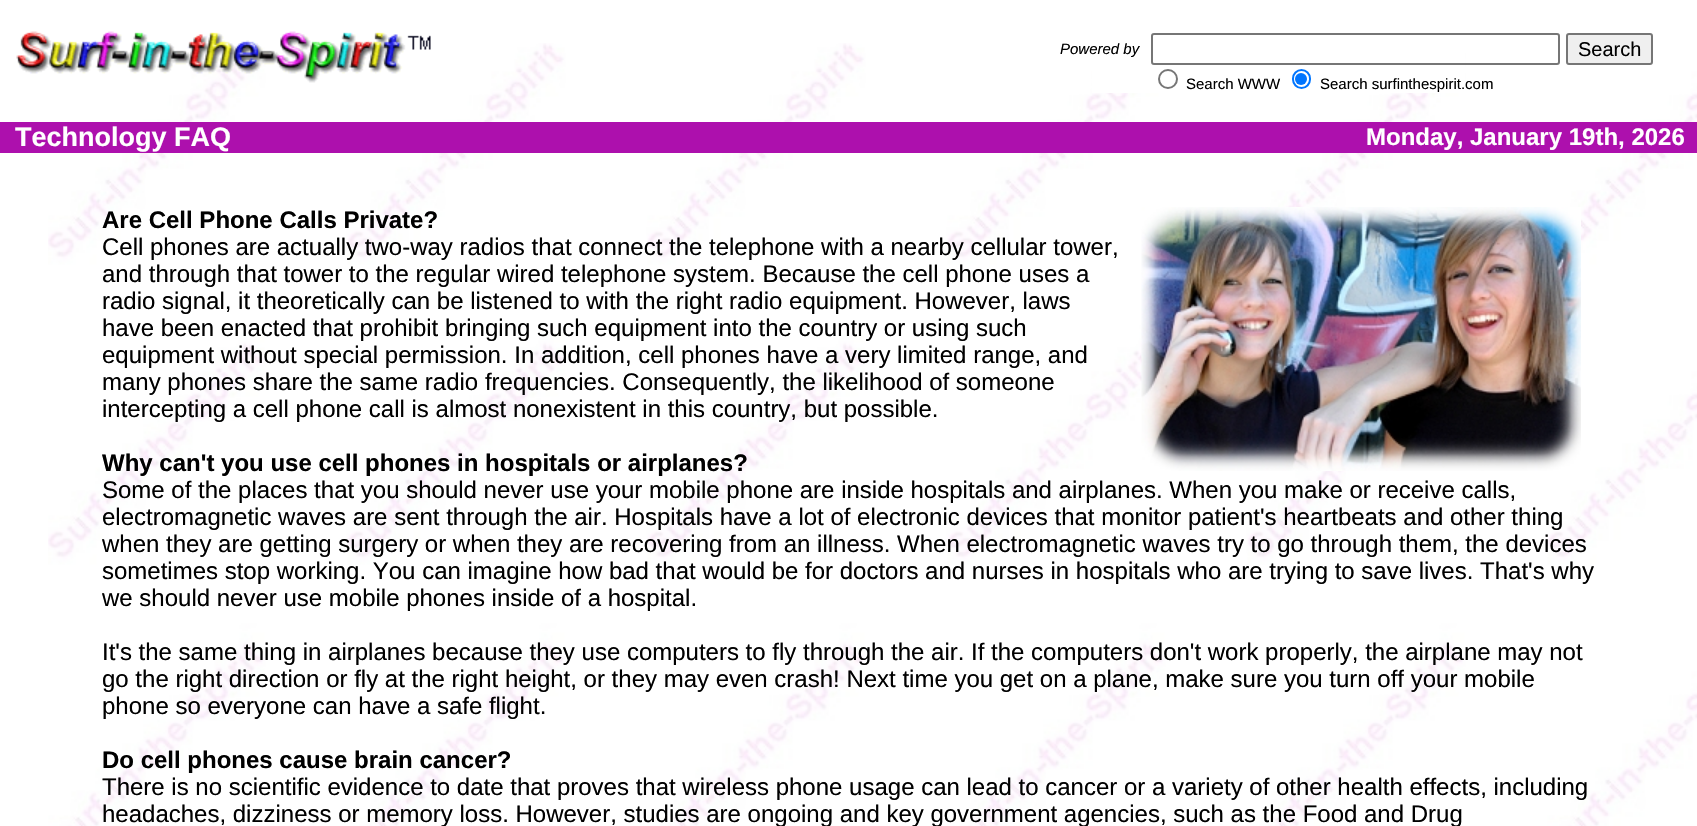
void draw(SkCanvas* canvas) {
    SkPaint paint;
    paint.setAntiAlias(true);
    auto face = [&](const char* family, int weight, float size, bool italic = false) {
        SkFontStyle style(weight, SkFontStyle::kNormal_Width,
            italic ? SkFontStyle::kItalic_Slant : SkFontStyle::kUpright_Slant);
        SkFont result(fontMgr->matchFamilyStyle(family, style), size);
        result.setSubpixel(true);
        return result;
    };
    auto write = [&](const char* s, float x, float y, const SkFont& font, SkColor color) {
        SkPaint ink(SkColor4f::FromColor(color));
        ink.setAntiAlias(true);
        canvas->drawString(s, x, y, font, ink);
    };
    auto block = [&](float x, float y, float w, float h, SkColor color) {
        SkPaint ink(SkColor4f::FromColor(color));
        ink.setAntiAlias(true);
        canvas->drawRect(SkRect::MakeXYWH(x, y, w, h), ink);
    };
    auto paste = [&](const char* path, float x, float y, float w, float h) {
        auto image = SkImages::DeferredFromEncodedData(SkData::MakeFromFileName(path));
        canvas->drawImageRect(image, SkRect::MakeXYWH(x, y, w, h), SkSamplingOptions());
    };
    canvas->clear(SK_ColorWHITE);
    paste("pic1.png", 48, 43, 1649, 783);
    paste("pic2.png", 16, 31, 415, 52);
    block(1092, 43, 373, 50, SK_ColorWHITE);
    auto kFont1 = face("Liberation Sans", 400, 15, true);
    write("Powered by", 1060, 54, kFont1, SK_ColorBLACK);
    paint.setStyle(SkPaint::kStroke_Style);
    paint.setStrokeWidth(2);
    paint.setColor(SkColorSetRGB(118, 118, 118));
    canvas->drawRoundRect(SkRect::MakeXYWH(1152, 34, 407, 30), 2, 2, paint);
    paint.setStyle(SkPaint::kFill_Style);
    paint.setColor(SkColorSetRGB(239, 239, 239));
    canvas->drawRoundRect(SkRect::MakeXYWH(1567, 34, 85, 30), 2, 2, paint);
    paint.setStyle(SkPaint::kStroke_Style);
    paint.setColor(SkColorSetRGB(118, 118, 118));
    canvas->drawRoundRect(SkRect::MakeXYWH(1567, 34, 85, 30), 2, 2, paint);
    auto kFont2 = face("Liberation Sans", 400, 20);
    write("Search", 1578, 56, kFont2, SK_ColorBLACK);
    canvas->drawCircle(1168, 79, 9, paint);
    auto kFont3 = face("Liberation Sans", 400, 15);
    write("Search WWW", 1186, 89, kFont3, SK_ColorBLACK);
    paint.setColor(SkColorSetRGB(0, 117, 255));
    canvas->drawRoundRect(SkRect::MakeXYWH(1293, 70, 17, 18), 8.5f, 8.5f, paint);
    paint.setStyle(SkPaint::kFill_Style);
    canvas->drawCircle(1301, 79, 6, paint);
    write("Search surfinthespirit.com", 1320, 89, kFont3, SK_ColorBLACK);
    block(0, 122, 1697, 31, SkColorSetRGB(173, 16, 173));
    auto kFont4 = face("Liberation Sans", 700, 27);
    write("Technology FAQ", 15, 146, kFont4, SK_ColorWHITE);
    auto kFont5 = face("Liberation Sans", 700, 24);
    write("Monday, January 19th, 2026", 1366, 145, kFont5, SK_ColorWHITE);
    write("Are Cell Phone Calls Private?", 102, 228, kFont5, SK_ColorBLACK);
    paste("pic3.png", 1141, 207, 440, 264);
    auto kFont6 = face("Liberation Sans", 400, 24);
    write("Cell phones are actually two-way radios that connect the telephone with a nearby cellular tower,", 102, 255, kFont6, SK_ColorBLACK);
    write("and through that tower to the regular wired telephone system. Because the cell phone uses a", 102, 282, kFont6, SK_ColorBLACK);
    write("radio signal, it theoretically can be listened to with the right radio equipment. However, laws", 102, 309, kFont6, SK_ColorBLACK);
    write("have been enacted that prohibit bringing such equipment into the country or using such", 102, 336, kFont6, SK_ColorBLACK);
    write("equipment without special permission. In addition, cell phones have a very limited range, and", 102, 363, kFont6, SK_ColorBLACK);
    write("many phones share the same radio frequencies. Consequently, the likelihood of someone", 102, 390, kFont6, SK_ColorBLACK);
    write("intercepting a cell phone call is almost nonexistent in this country, but possible.", 102, 417, kFont6, SK_ColorBLACK);
    write("Why can't you use cell phones in hospitals or airplanes?", 102, 471, kFont5, SK_ColorBLACK);
    write("Some of the places that you should never use your mobile phone are inside hospitals and airplanes. When you make or receive calls,", 102, 498, kFont6, SK_ColorBLACK);
    write("electromagnetic waves are sent through the air. Hospitals have a lot of electronic devices that monitor patient's heartbeats and other thing", 102, 525, kFont6, SK_ColorBLACK);
    write("when they are getting surgery or when they are recovering from an illness. When electromagnetic waves try to go through them, the devices", 102, 552, kFont6, SK_ColorBLACK);
    write("sometimes stop working. You can imagine how bad that would be for doctors and nurses in hospitals who are trying to save lives. That's why", 102, 579, kFont6, SK_ColorBLACK);
    write("we should never use mobile phones inside of a hospital.", 102, 606, kFont6, SK_ColorBLACK);
    write("It's the same thing in airplanes because they use computers to fly through the air. If the computers don't work properly, the airplane may not", 102, 660, kFont6, SK_ColorBLACK);
    write("go the right direction or fly at the right height, or they may even crash! Next time you get on a plane, make sure you turn off your mobile", 102, 687, kFont6, SK_ColorBLACK);
    write("phone so everyone can have a safe flight.", 102, 714, kFont6, SK_ColorBLACK);
    write("Do cell phones cause brain cancer?", 102, 768, kFont5, SK_ColorBLACK);
    write("There is no scientific evidence to date that proves that wireless phone usage can lead to cancer or a variety of other health effects, including", 102, 795, kFont6, SK_ColorBLACK);
    write("headaches, dizziness or memory loss. However, studies are ongoing and key government agencies, such as the Food and Drug", 102, 822, kFont6, SK_ColorBLACK);
}
